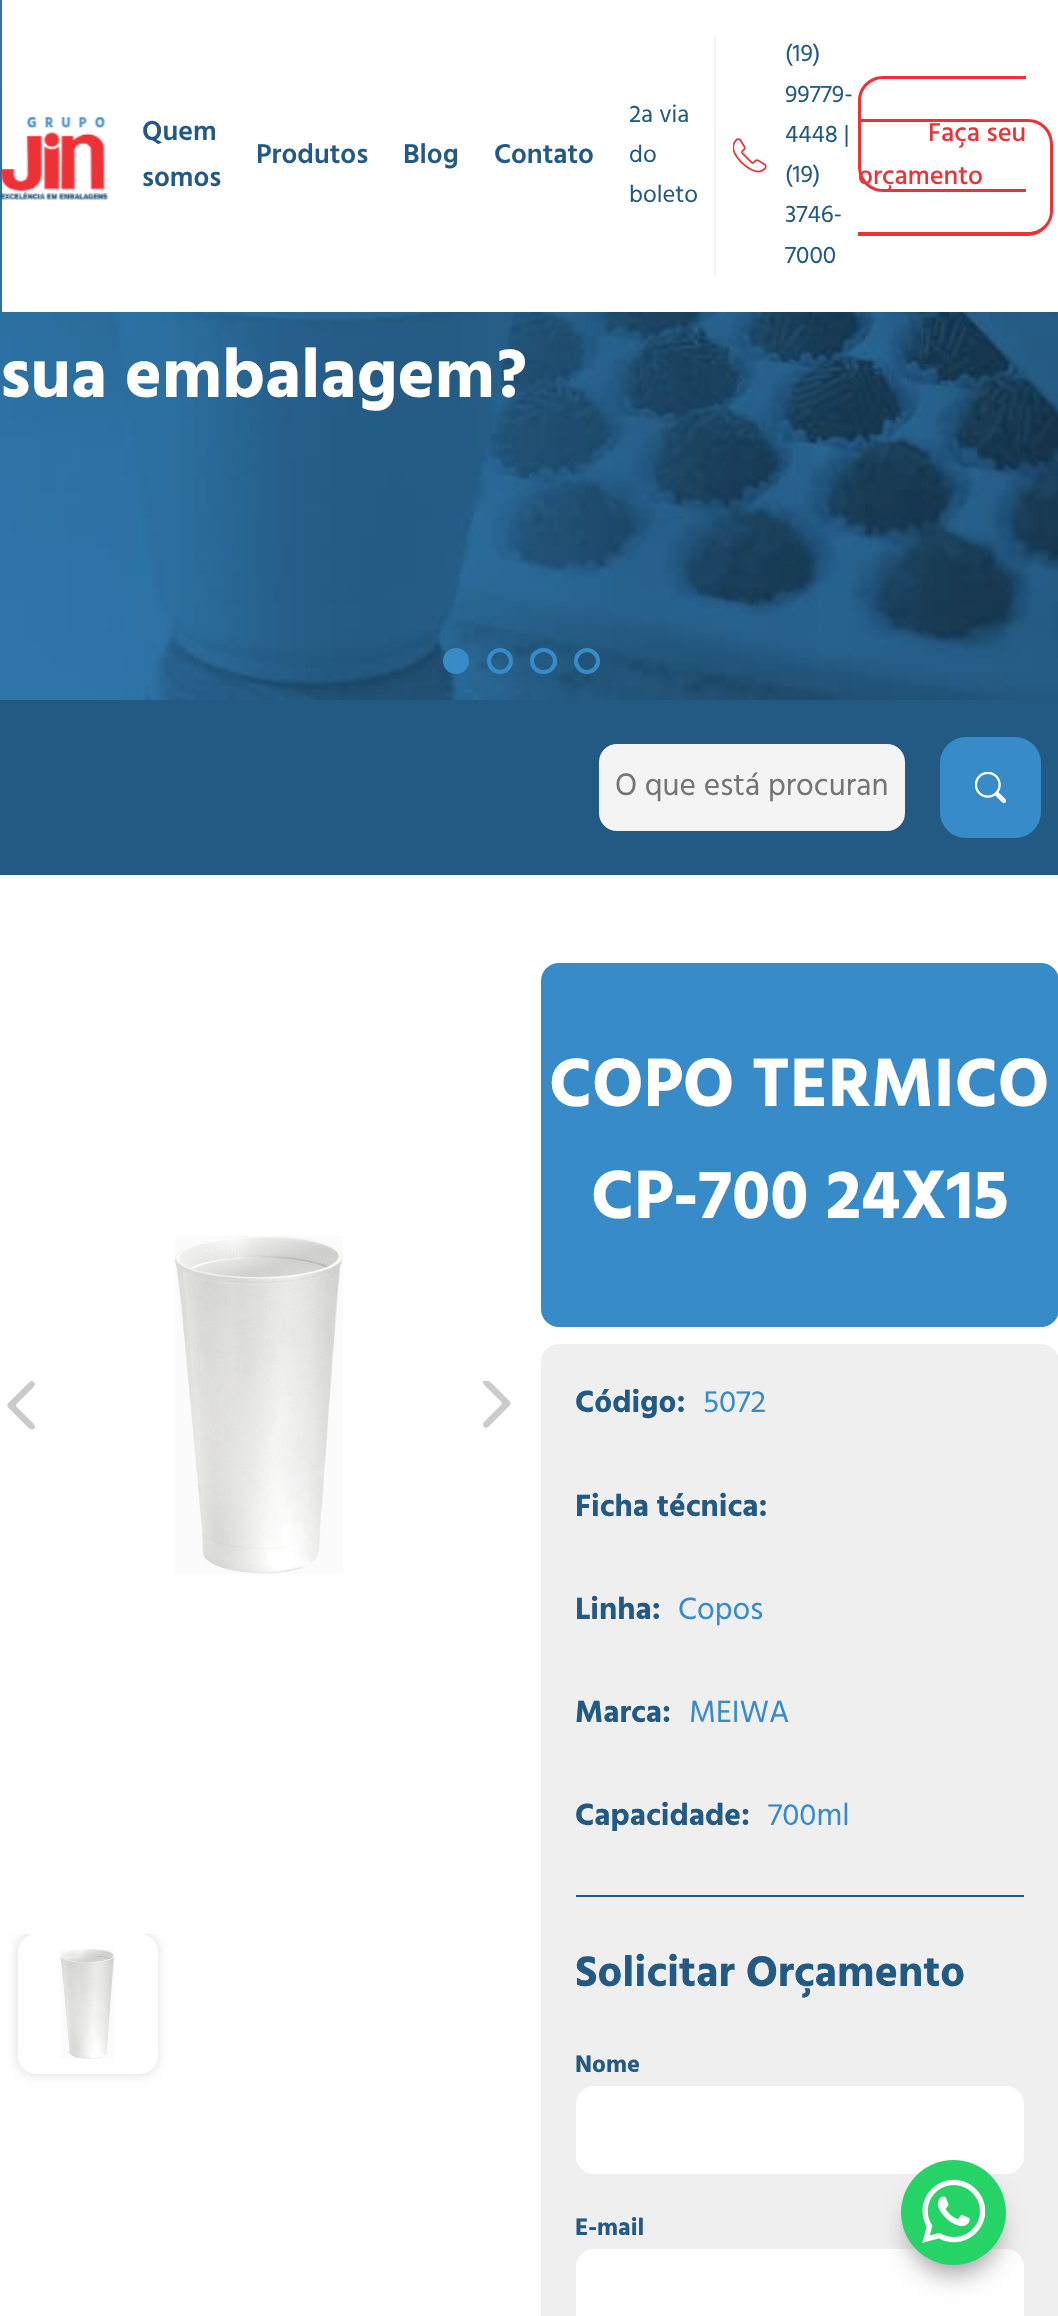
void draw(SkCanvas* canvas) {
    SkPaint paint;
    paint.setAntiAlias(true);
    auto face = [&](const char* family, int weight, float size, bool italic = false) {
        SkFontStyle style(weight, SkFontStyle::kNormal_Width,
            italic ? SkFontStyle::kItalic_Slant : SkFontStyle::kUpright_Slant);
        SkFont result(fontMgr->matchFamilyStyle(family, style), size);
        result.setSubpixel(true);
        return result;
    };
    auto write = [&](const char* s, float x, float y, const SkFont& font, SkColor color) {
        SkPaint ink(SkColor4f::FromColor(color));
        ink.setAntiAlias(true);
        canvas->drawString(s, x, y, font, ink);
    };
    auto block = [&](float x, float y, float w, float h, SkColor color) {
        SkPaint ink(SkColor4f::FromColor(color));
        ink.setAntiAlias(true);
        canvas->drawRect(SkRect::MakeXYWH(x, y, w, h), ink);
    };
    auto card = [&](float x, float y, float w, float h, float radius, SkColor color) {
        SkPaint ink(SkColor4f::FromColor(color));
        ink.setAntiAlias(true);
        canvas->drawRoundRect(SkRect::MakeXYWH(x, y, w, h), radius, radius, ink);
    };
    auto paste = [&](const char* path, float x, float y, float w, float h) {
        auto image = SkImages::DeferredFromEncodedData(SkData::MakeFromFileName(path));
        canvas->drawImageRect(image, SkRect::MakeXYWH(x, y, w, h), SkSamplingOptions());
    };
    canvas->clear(SK_ColorWHITE);
    paste("pic3.png", 0, 0, 1058, 700);
    block(2, 0, 1056, 312, SK_ColorWHITE);
    paste("pic1.png", 0, 116, 109, 84);
    auto kFont1 = face("Hind", 600, 28);
    write("Quem", 142, 140, kFont1, SkColorSetRGB(35, 90, 131));
    write("somos", 142, 186, kFont1, SkColorSetRGB(35, 90, 131));
    write("Produtos", 256, 163, kFont1, SkColorSetRGB(35, 90, 131));
    write("Blog", 403, 163, kFont1, SkColorSetRGB(35, 90, 131));
    write("Contato", 494, 163, kFont1, SkColorSetRGB(35, 90, 131));
    auto kFont2 = face("Hind", 400, 24.5f);
    write("2a via", 629, 122, kFont2, SkColorSetRGB(35, 90, 131));
    block(714, 35, 2, 242, SkColorSetRGB(244, 244, 244));
    write("do", 629, 162, kFont2, SkColorSetRGB(35, 90, 131));
    write("boleto", 629, 202, kFont2, SkColorSetRGB(35, 90, 131));
    paste("pic2.png", 733, 138, 34, 35);
    write("(19)", 785, 61, kFont2, SkColorSetRGB(35, 90, 131));
    write("99779-", 785, 102, kFont2, SkColorSetRGB(35, 90, 131));
    write("4448 |", 785, 142, kFont2, SkColorSetRGB(35, 90, 131));
    write("(19)", 785, 182, kFont2, SkColorSetRGB(35, 90, 131));
    write("3746-", 785, 222, kFont2, SkColorSetRGB(35, 90, 131));
    write("7000", 785, 263, kFont2, SkColorSetRGB(35, 90, 131));
    paint.setColor(SkColorSetRGB(237, 50, 55));
    canvas->drawPath(SkPathBuilder(SkPathFillType::kEvenOdd).moveTo(883, 76).lineTo(1026, 76).lineTo(1026, 192).lineTo(883, 192).cubicTo(869, 192, 858, 181, 858, 167).lineTo(858, 101).cubicTo(858, 87, 869, 76, 883, 76).close().moveTo(883, 79).lineTo(1026, 79).lineTo(1026, 189).lineTo(883, 189).cubicTo(871, 189, 861, 179, 861, 167).lineTo(861, 101).cubicTo(861, 89, 871, 79, 883, 79).close().detach(), paint);
    canvas->drawPath(SkPathBuilder(SkPathFillType::kEvenOdd).moveTo(858, 119).lineTo(1028, 119).cubicTo(1042, 119, 1053, 130, 1053, 144).lineTo(1053, 211).cubicTo(1053, 224, 1042, 236, 1028, 236).lineTo(858, 236).close().moveTo(858, 122).lineTo(1028, 122).cubicTo(1040, 122, 1050, 132, 1050, 144).lineTo(1050, 211).cubicTo(1050, 223, 1040, 232, 1028, 232).lineTo(858, 232).close().detach(), paint);
    auto kFont3 = face("Hind", 500, 26.5f);
    write("Faça seu", 928, 141, kFont3, SkColorSetRGB(237, 50, 55));
    write("orçamento", 858, 184, kFont3, SkColorSetRGB(237, 50, 55));
    auto kFont4 = face("Hind", 700, 70);
    write("sua embalagem?", 0, 397, kFont4, SK_ColorWHITE);
    paint.setColor(SkColorSetRGB(55, 139, 201));
    canvas->drawCircle(456, 661, 11, paint);
    paint.setStyle(SkPaint::kStroke_Style);
    paint.setStrokeWidth(4);
    canvas->drawCircle(456, 661, 11, paint);
    canvas->drawCircle(500, 661, 11, paint);
    canvas->drawRoundRect(SkRect::MakeXYWH(532, 650, 23, 22), 11, 11, paint);
    canvas->drawCircle(587, 661, 11, paint);
    block(0, 700, 1058, 175, SkColorSetRGB(35, 90, 131));
    card(599, 744, 306, 87, 18, SkColorSetRGB(244, 244, 244));
    auto kFont5 = face("Hind", 400, 31.5f);
    write("O que está procuran", 615, 795, kFont5, SkColorSetRGB(117, 117, 117));
    card(940, 737, 101, 101, 26, SkColorSetRGB(55, 139, 201));
    paste("pic4.png", 975, 772, 31, 31);
    paste("pic5.png", 7, 1381, 28, 49);
    paste("pic6.png", 175, 1236, 168, 338);
    paste("pic7.png", 483, 1381, 28, 47);
    canvas->save();
    canvas->clipRect(SkRect::MakeXYWH(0, 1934, 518, 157));
    canvas->clipPath(SkPathBuilder(SkPathFillType::kEvenOdd).moveTo(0, 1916).lineTo(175, 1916).lineTo(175, 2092).lineTo(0, 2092).close().moveTo(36, 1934).lineTo(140, 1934).cubicTo(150, 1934, 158, 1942, 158, 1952).lineTo(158, 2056).cubicTo(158, 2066, 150, 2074, 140, 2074).lineTo(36, 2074).cubicTo(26, 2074, 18, 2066, 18, 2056).lineTo(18, 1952).cubicTo(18, 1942, 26, 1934, 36, 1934).close().detach(), true);
    paint.setStyle(SkPaint::kFill_Style);
    paint.setColor(SkColorSetARGB(26, 0, 0, 0));
    paint.setMaskFilter(SkMaskFilter::MakeBlur(kNormal_SkBlurStyle, 5));
    canvas->drawRoundRect(SkRect::MakeXYWH(16, 1932, 143, 144), 19, 19, paint);
    paint.setMaskFilter(nullptr);
    canvas->restore();
    paste("pic8.png", 60, 1949, 55, 110);
    card(541, 963, 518, 364, 18, SkColorSetRGB(55, 139, 201));
    write("COPO TERMICO", 549, 1106, kFont4, SK_ColorWHITE);
    write("CP-700 24X15", 591, 1218, kFont4, SK_ColorWHITE);
    card(541, 1344, 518, 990, 18, SkColorSetRGB(239, 239, 239));
    auto kFont6 = face("Hind", 700, 31.5f);
    write("Código:", 575, 1412, kFont6, SkColorSetRGB(35, 90, 131));
    write("5072", 703, 1412, kFont5, SkColorSetRGB(55, 139, 201));
    write("Ficha técnica:", 575, 1516, kFont6, SkColorSetRGB(35, 90, 131));
    write("Linha:", 575, 1619, kFont6, SkColorSetRGB(35, 90, 131));
    write("Copos", 678, 1619, kFont5, SkColorSetRGB(55, 139, 201));
    write("Marca:", 575, 1722, kFont6, SkColorSetRGB(35, 90, 131));
    write("MEIWA", 689, 1722, kFont5, SkColorSetRGB(55, 139, 201));
    write("Capacidade:", 575, 1825, kFont6, SkColorSetRGB(35, 90, 131));
    write("700ml", 768, 1825, kFont5, SkColorSetRGB(55, 139, 201));
    block(576, 1895, 448, 2, SkColorSetRGB(35, 90, 132));
    auto kFont7 = face("Hind", 700, 43.75f);
    write("Solicitar Orçamento", 575, 1986, kFont7, SkColorSetRGB(35, 90, 131));
    auto kFont8 = face("Hind", 700, 24.5f);
    write("Nome", 575, 2072, kFont8, SkColorSetRGB(35, 90, 131));
    card(576, 2086, 448, 88, 18, SK_ColorWHITE);
    write("E-mail", 575, 2235, kFont8, SkColorSetRGB(35, 90, 131));
    card(576, 2249, 448, 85, 18, SK_ColorWHITE);
    paint.setColor(SkColorSetARGB(102, 0, 0, 0));
    paint.setMaskFilter(SkMaskFilter::MakeBlur(kNormal_SkBlurStyle, 13));
    canvas->drawRoundRect(SkRect::MakeXYWH(910, 2186, 88, 87), 43.5f, 43.5f, paint);
    paint.setMaskFilter(nullptr);
    paint.setColor(SkColorSetRGB(37, 211, 102));
    canvas->drawCircle(953.5f, 2212.5f, 52.5f, paint);
    paste("pic9.png", 922, 2179, 63, 64);
}
